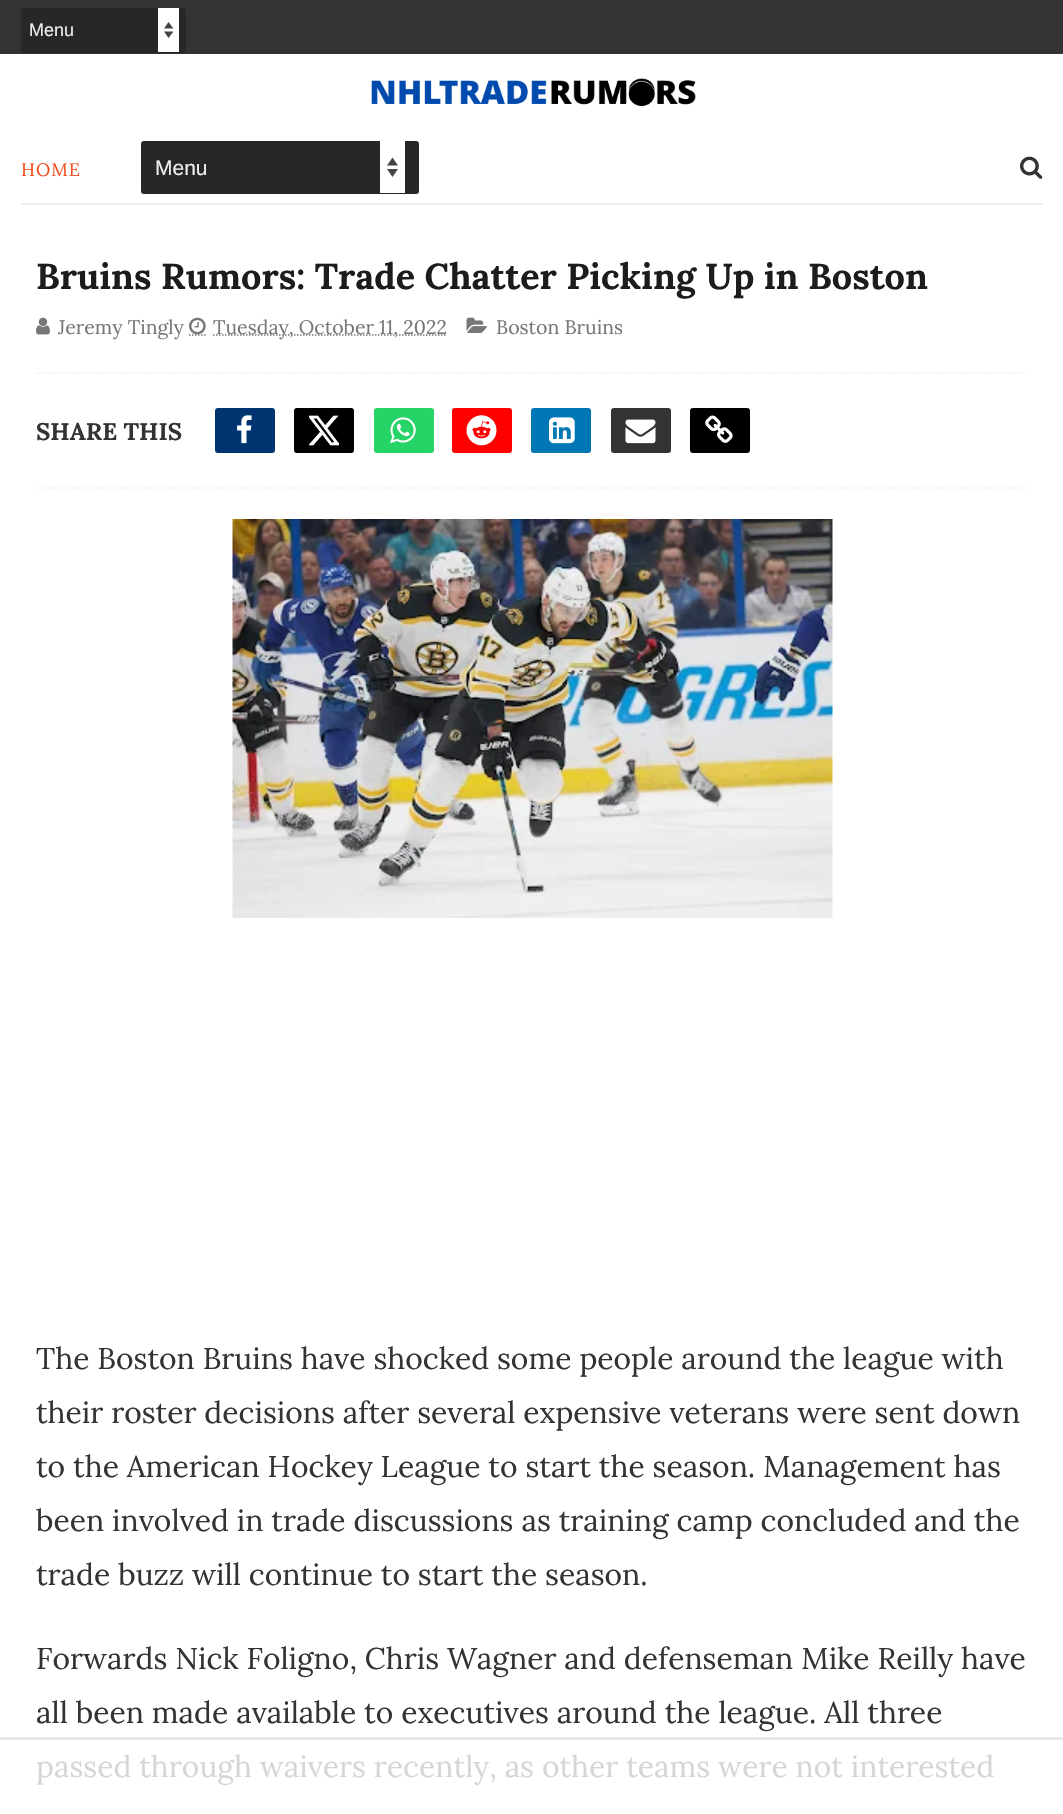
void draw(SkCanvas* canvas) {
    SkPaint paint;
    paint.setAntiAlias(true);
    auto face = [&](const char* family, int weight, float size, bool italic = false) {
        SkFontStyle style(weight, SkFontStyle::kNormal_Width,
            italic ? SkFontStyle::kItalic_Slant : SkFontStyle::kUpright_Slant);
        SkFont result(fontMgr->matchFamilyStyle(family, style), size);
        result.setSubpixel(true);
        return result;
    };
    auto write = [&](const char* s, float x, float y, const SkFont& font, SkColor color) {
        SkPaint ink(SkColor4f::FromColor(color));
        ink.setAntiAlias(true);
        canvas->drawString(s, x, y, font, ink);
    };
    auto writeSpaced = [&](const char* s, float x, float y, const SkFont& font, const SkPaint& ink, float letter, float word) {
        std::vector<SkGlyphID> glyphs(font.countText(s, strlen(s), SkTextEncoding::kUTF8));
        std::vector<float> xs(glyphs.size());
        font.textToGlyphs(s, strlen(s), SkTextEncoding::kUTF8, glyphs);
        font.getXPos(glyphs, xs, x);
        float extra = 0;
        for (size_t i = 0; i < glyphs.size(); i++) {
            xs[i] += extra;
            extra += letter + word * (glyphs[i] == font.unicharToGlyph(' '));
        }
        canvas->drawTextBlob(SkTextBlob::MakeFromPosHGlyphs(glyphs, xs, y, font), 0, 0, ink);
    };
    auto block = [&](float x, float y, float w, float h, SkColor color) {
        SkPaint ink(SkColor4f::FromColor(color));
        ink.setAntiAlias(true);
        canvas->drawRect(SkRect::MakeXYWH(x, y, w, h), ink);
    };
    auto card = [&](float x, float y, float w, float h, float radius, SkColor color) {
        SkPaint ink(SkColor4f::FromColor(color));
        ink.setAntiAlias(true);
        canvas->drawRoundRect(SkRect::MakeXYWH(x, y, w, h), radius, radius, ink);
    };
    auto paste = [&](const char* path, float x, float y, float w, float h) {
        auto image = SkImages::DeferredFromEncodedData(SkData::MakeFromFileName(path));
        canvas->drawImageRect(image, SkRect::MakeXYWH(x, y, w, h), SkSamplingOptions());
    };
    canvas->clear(SK_ColorWHITE);
    block(0, 0, 1063, 54, SkColorSetRGB(51, 51, 51));
    card(21, 8, 165, 45, 3, SkColorSetRGB(39, 39, 39));
    block(158, 8, 21, 44, SK_ColorWHITE);
    paint.setColor(SkColorSetRGB(68, 68, 68));
    canvas->drawPath(SkPathBuilder().moveTo(164, 28.5f).lineTo(168.5f, 22).lineTo(173.5f, 28.5f).close().moveTo(173.5f, 31.5f).lineTo(168.5f, 38).lineTo(164, 31.5f).close().detach(), paint);
    auto kFont1 = face("Liberation Sans", 400, 18);
    write("Menu", 29, 36, kFont1, SkColorSetRGB(238, 238, 238));
    paste("pic1.png", 371, 78, 325, 29);
    block(21, 203, 1022, 2, SkColorSetRGB(238, 238, 238));
    auto kFont2 = face("Lora", 400, 18);
    paint.setColor(SkColorSetRGB(239, 77, 28));
    writeSpaced("HOME", 21, 176, kFont2, paint, 1, 0);
    card(141, 141, 278, 53, 3, SkColorSetRGB(39, 39, 39));
    block(380, 141, 25, 52, SK_ColorWHITE);
    paint.setColor(SkColorSetRGB(68, 68, 68));
    canvas->drawPath(SkPathBuilder().moveTo(387, 165.5f).lineTo(392.5f, 157.5f).lineTo(398, 165.5f).close().moveTo(398, 169).lineTo(392.5f, 177).lineTo(387, 169).close().detach(), paint);
    auto kFont3 = face("Liberation Sans", 400, 21);
    write("Menu", 155, 175, kFont3, SkColorSetRGB(238, 238, 238));
    paste("pic2.png", 1020, 156, 23, 23);
    auto kFont4 = face("Lora", 700, 36);
    write("Bruins Rumors: Trade Chatter Picking Up in Boston", 36, 289, kFont4, SkColorSetRGB(28, 28, 28));
    paste("pic3.png", 36, 317, 14, 18);
    auto kFont5 = face("Lora", 400, 19.5f);
    write("Jeremy Tingly", 58, 334, kFont5, SkColorSetRGB(119, 119, 119));
    paint.setStyle(SkPaint::kStroke_Style);
    paint.setStrokeWidth(1.5f);
    paint.setColor(SkColorSetRGB(119, 119, 119));
    paint.setPathEffect(SkDashPathEffect::Make({{1.5f, 1.5f}}, 0));
    canvas->drawPath(SkPathBuilder().moveTo(189, 335).lineTo(205.5f, 335).detach(), paint);
    paint.setPathEffect(nullptr);
    paste("pic4.png", 189, 317, 17, 18);
    paint.setPathEffect(SkDashPathEffect::Make({{1.5f, 1.5f}}, 0));
    canvas->drawPath(SkPathBuilder().moveTo(213, 335).lineTo(447, 335).detach(), paint);
    paint.setPathEffect(nullptr);
    write("Tuesday, October 11, 2022", 213, 334, kFont5, SkColorSetRGB(119, 119, 119));
    paste("pic5.png", 466, 317, 21, 16);
    write("Boston Bruins", 496, 334, kFont5, SkColorSetRGB(119, 119, 119));
    paint.setColor(SkColorSetRGB(240, 240, 240));
    paint.setPathEffect(SkDashPathEffect::Make({{1.5f, 1.5f}}, 0));
    canvas->drawPath(SkPathBuilder().moveTo(36, 373).lineTo(1027.5f, 373).detach(), paint);
    paint.setPathEffect(nullptr);
    paint.setPathEffect(SkDashPathEffect::Make({{1.5f, 1.5f}}, 0));
    canvas->drawPath(SkPathBuilder().moveTo(36, 488).lineTo(1027.5f, 488).detach(), paint);
    paint.setPathEffect(nullptr);
    auto kFont6 = face("Lora", 700, 24);
    write("SHARE THIS", 36, 440, kFont6, SkColorSetRGB(51, 51, 51));
    card(215, 408, 60, 45, 3, SkColorSetRGB(0, 52, 113));
    paste("pic6.png", 237, 415, 15, 29);
    card(294, 408, 60, 45, 3, SK_ColorBLACK);
    paste("pic7.png", 309, 415, 30, 31);
    card(374, 408, 60, 45, 3, SkColorSetRGB(37, 211, 102));
    paste("pic8.png", 390, 417, 26, 27);
    card(452, 408, 60, 45, 3, SkColorSetRGB(255, 0, 0));
    paste("pic9.png", 466, 415, 31, 31);
    card(531, 408, 60, 45, 3, SkColorSetRGB(0, 119, 181));
    paste("pic10.png", 549, 417, 26, 27);
    card(611, 408, 60, 45, 3, SkColorSetRGB(51, 51, 51));
    paste("pic11.png", 625, 419, 31, 25);
    card(690, 408, 60, 45, 3, SK_ColorBLACK);
    paste("pic12.png", 705, 415, 28, 28);
    paste("pic13.png", 232, 519, 601, 399);
    auto kFont7 = face("Lora", 400, 30);
    write("The Boston Bruins have shocked some people around the league with", 36, 1369, kFont7, SkColorSetRGB(51, 51, 51));
    write("their roster decisions after several expensive veterans were sent down", 36, 1423, kFont7, SkColorSetRGB(51, 51, 51));
    write("to the American Hockey League to start the season. Management has", 36, 1477, kFont7, SkColorSetRGB(51, 51, 51));
    write("been involved in trade discussions as training camp concluded and the", 36, 1531, kFont7, SkColorSetRGB(51, 51, 51));
    write("trade buzz will continue to start the season.", 36, 1585, kFont7, SkColorSetRGB(51, 51, 51));
    write("Forwards Nick Foligno, Chris Wagner and defenseman Mike Reilly have", 36, 1669, kFont7, SkColorSetRGB(51, 51, 51));
    write("all been made available to executives around the league. All three", 36, 1723, kFont7, SkColorSetRGB(51, 51, 51));
    write("passed through waivers recently, as other teams were not interested", 36, 1777, kFont7, SkColorSetRGB(214, 214, 214));
    block(0, 1737, 1063, 3, SkColorSetRGB(231, 231, 231));
}
